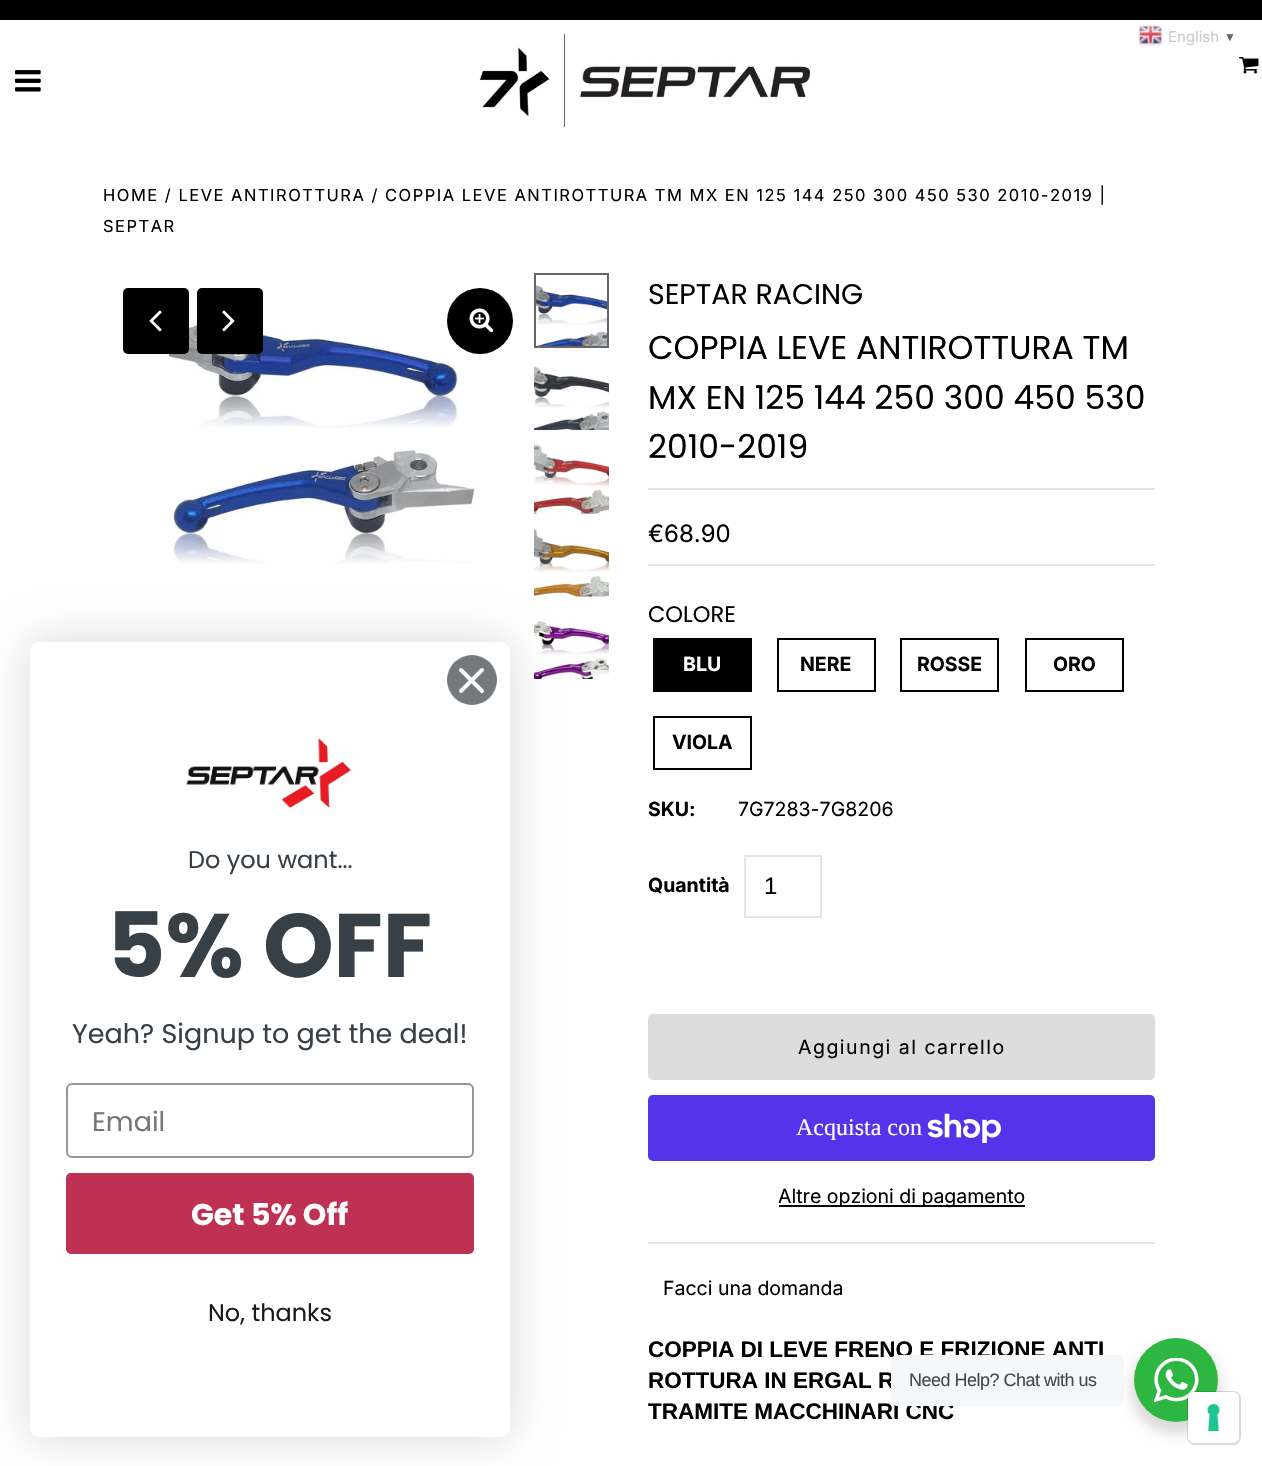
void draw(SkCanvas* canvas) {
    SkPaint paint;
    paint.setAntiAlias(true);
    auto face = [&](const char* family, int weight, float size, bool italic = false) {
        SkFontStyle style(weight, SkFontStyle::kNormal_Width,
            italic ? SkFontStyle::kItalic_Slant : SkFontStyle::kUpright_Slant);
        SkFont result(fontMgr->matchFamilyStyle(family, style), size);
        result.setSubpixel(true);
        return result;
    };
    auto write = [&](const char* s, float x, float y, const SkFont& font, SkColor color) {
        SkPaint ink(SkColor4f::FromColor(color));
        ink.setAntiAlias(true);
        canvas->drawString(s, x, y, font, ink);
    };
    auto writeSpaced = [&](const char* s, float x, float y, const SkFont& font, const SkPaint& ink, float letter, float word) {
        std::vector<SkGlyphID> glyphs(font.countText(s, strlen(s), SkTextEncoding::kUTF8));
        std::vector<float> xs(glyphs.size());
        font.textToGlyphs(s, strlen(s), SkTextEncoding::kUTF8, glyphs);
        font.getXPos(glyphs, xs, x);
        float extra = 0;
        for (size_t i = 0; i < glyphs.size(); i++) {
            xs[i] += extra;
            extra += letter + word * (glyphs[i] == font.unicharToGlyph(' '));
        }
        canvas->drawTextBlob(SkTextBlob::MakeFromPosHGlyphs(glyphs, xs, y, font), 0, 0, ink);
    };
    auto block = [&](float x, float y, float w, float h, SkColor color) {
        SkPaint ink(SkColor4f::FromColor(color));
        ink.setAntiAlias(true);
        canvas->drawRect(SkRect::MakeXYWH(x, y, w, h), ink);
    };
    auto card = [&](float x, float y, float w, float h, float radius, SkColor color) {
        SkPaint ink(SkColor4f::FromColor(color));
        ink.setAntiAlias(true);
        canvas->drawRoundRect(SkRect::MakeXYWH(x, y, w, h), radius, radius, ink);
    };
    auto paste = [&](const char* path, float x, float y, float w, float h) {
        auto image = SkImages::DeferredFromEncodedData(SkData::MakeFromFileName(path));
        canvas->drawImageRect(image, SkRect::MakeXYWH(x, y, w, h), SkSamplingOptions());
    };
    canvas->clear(SK_ColorWHITE);
    paste("pic1.png", 1138, 25, 25, 21);
    auto kFont1 = face("Inter", 400, 15);
    write("English", 1168, 42, kFont1, SkColorSetRGB(204, 204, 204));
    auto kFont2 = face("Liberation Serif", 700, 12);
    write("▼", 1224, 41, kFont2, SkColorSetRGB(102, 102, 102));
    block(0, 0, 1262, 20, SK_ColorBLACK);
    paste("pic2.png", 479, 34, 331, 93);
    paste("pic3.png", 1239, 57, 20, 17);
    paste("pic4.png", 15, 70, 26, 22);
    auto kFont3 = face("Inter", 400, 16.5f);
    paint.setColor(SK_ColorBLACK);
    writeSpaced("HOME / LEVE ANTIROTTURA / COPPIA LEVE ANTIROTTURA TM MX EN 125 144 250 300 450 530 2010-2019 |", 103, 201, kFont3, paint, 1.5f, 0);
    writeSpaced("SEPTAR", 103, 232, kFont3, paint, 1.5f, 0);
    paste("pic6.png", 167, 309, 308, 255);
    card(123, 288, 66, 66, 5, SK_ColorBLACK);
    paste("pic5.png", 149, 310, 13, 22);
    canvas->drawCircle(480, 321, 33, paint);
    paste("pic7.png", 469, 308, 25, 25);
    card(197, 288, 66, 66, 5, SK_ColorBLACK);
    paste("pic8.png", 222, 310, 13, 22);
    paste("pic9.png", 536, 285, 71, 61);
    paint.setStyle(SkPaint::kStroke_Style);
    paint.setStrokeWidth(2);
    paint.setColor(SkColorSetRGB(102, 102, 102));
    canvas->drawRect(SkRect::MakeXYWH(535, 274, 73, 73), paint);
    paste("pic10.png", 534, 366, 75, 64);
    paste("pic11.png", 534, 444, 75, 70);
    paste("pic12.png", 534, 529, 75, 68);
    paste("pic13.png", 534, 621, 75, 58);
    auto kFont4 = face("Poppins", 400, 28.5f);
    write("SEPTAR RACING", 648, 304, kFont4, SK_ColorBLACK);
    auto kFont5 = face("Poppins", 400, 33);
    write("COPPIA LEVE ANTIROTTURA TM", 648, 359, kFont5, SK_ColorBLACK);
    write("MX EN 125 144 250 300 450 530", 648, 409, kFont5, SK_ColorBLACK);
    write("2010-2019", 648, 458, kFont5, SK_ColorBLACK);
    block(648, 488, 507, 2, SkColorSetRGB(229, 229, 229));
    block(648, 1242, 507, 2, SkColorSetRGB(229, 229, 229));
    block(648, 564, 507, 2, SkColorSetRGB(229, 229, 229));
    auto kFont6 = face("Inter", 400, 24);
    write("€68.90", 648, 542, kFont6, SK_ColorBLACK);
    auto kFont7 = face("Poppins", 400, 22.5f);
    write("COLORE", 648, 622, kFont7, SK_ColorBLACK);
    block(653, 638, 99, 54, SK_ColorBLACK);
    auto kFont8 = face("Inter", 700, 19.5f);
    write("BLU", 683, 671, kFont8, SK_ColorWHITE);
    paint.setColor(SK_ColorBLACK);
    canvas->drawRect(SkRect::MakeXYWH(778, 639, 97, 52), paint);
    write("NERE", 800, 671, kFont8, SK_ColorBLACK);
    canvas->drawRect(SkRect::MakeXYWH(901, 639, 97, 52), paint);
    write("ROSSE", 917, 671, kFont8, SK_ColorBLACK);
    canvas->drawRect(SkRect::MakeXYWH(1026, 639, 97, 52), paint);
    write("ORO", 1053, 671, kFont8, SK_ColorBLACK);
    canvas->drawRect(SkRect::MakeXYWH(654, 717, 97, 52), paint);
    write("VIOLA", 672, 749, kFont8, SK_ColorBLACK);
    write("SKU:", 648, 816, kFont8, SK_ColorBLACK);
    auto kFont9 = face("Inter", 400, 19.5f);
    write("7G7283-7G8206", 738, 816, kFont9, SK_ColorBLACK);
    write("Quantità", 648, 892, kFont8, SK_ColorBLACK);
    paint.setColor(SkColorSetRGB(229, 229, 229));
    canvas->drawRect(SkRect::MakeXYWH(745, 856, 76, 61), paint);
    auto kFont10 = face("Liberation Sans", 400, 24);
    write("1", 764, 894, kFont10, SK_ColorBLACK);
    card(648, 1014, 507, 66, 5, SkColorSetRGB(221, 221, 221));
    paint.setStyle(SkPaint::kFill_Style);
    paint.setColor(SK_ColorBLACK);
    writeSpaced("Aggiungi al carrello", 798, 1054, kFont9, paint, 1.5f, 0);
    card(648, 1095, 507, 66, 5, SkColorSetRGB(84, 51, 235));
    auto kFont11 = face("Liberation Serif", 400, 24);
    write("Acquista con", 796, 1135, kFont11, SK_ColorWHITE);
    paste("pic14.png", 927, 1113, 74, 30);
    block(779, 1205, 246, 2, SK_ColorBLACK);
    write("Altre opzioni di pagamento", 778, 1203, kFont9, SK_ColorBLACK);
    write("Facci una domanda", 663, 1295, kFont9, SK_ColorBLACK);
    auto kFont12 = face("Liberation Sans", 700, 22.5f);
    write("COPPIA DI LEVE FRENO E FRIZIONE ANTI", 648, 1357, kFont12, SK_ColorBLACK);
    write("ROTTURA IN ERGAL R", 648, 1388, kFont12, SK_ColorBLACK);
    write("TRAMITE MACCHINARI CNC", 648, 1419, kFont12, SK_ColorBLACK);
    paint.setColor(SkColorSetARGB(38, 0, 0, 0));
    paint.setMaskFilter(SkMaskFilter::MakeBlur(kNormal_SkBlurStyle, 22.5f));
    canvas->drawRoundRect(SkRect::MakeXYWH(30, 642, 480, 795), 9, 9, paint);
    paint.setMaskFilter(nullptr);
    card(30, 642, 480, 795, 9, SK_ColorWHITE);
    paint.setColor(SkColorSetRGB(115, 121, 126));
    canvas->drawCircle(472, 680, 25, paint);
    paint.setStyle(SkPaint::kStroke_Style);
    paint.setStrokeWidth(3.9f);
    paint.setStrokeCap(SkPaint::kRound_Cap);
    paint.setStrokeJoin(SkPaint::kRound_Join);
    paint.setColor(SK_ColorWHITE);
    canvas->drawPath(SkPathBuilder().moveTo(461, 670).lineTo(482, 691).moveTo(461, 691).lineTo(482, 670).close().detach(), paint);
    paste("pic15.png", 186, 738, 167, 72);
    auto kFont13 = face("Poppins", 400, 24);
    write("Do you want...", 188, 868, kFont13, SkColorSetRGB(55, 63, 71));
    auto kFont14 = face("Poppins", 700, 90);
    write("5% OFF", 107, 977, kFont14, SkColorSetRGB(55, 63, 71));
    auto kFont15 = face("Poppins", 400, 27);
    write("Yeah? Signup to get the deal!", 72, 1043, kFont15, SkColorSetRGB(55, 63, 71));
    paint.setStrokeWidth(2);
    paint.setStrokeCap(SkPaint::kButt_Cap);
    paint.setStrokeJoin(SkPaint::kMiter_Join);
    paint.setColor(SkColorSetRGB(148, 149, 150));
    canvas->drawRoundRect(SkRect::MakeXYWH(67, 1084, 406, 73), 5, 5, paint);
    write("Email", 92, 1131, kFont15, SkColorSetRGB(118, 118, 118));
    card(66, 1173, 408, 81, 5, SkColorSetRGB(191, 49, 82));
    auto kFont16 = face("Poppins", 700, 30);
    write("Get 5% Off", 191, 1225, kFont16, SK_ColorWHITE);
    write("No, thanks", 208, 1321, kFont13, SkColorSetRGB(22, 27, 32));
    paint.setStyle(SkPaint::kFill_Style);
    paint.setColor(SkColorSetARGB(36, 0, 0, 0));
    paint.setMaskFilter(SkMaskFilter::MakeBlur(kNormal_SkBlurStyle, 6));
    canvas->drawRoundRect(SkRect::MakeXYWH(1131, 1344, 90, 90), 45, 45, paint);
    paint.setMaskFilter(nullptr);
    card(891, 1355, 233, 51, 6, SkColorSetRGB(245, 247, 249));
    auto kFont17 = face("Liberation Sans", 400, 18);
    paint.setColor(SkColorSetRGB(67, 71, 78));
    writeSpaced("Need Help? Chat with us", 909, 1386, kFont17, paint, -0.5f, 0);
    paint.setColor(SkColorSetRGB(45, 183, 66));
    canvas->drawCircle(1176, 1380, 42, paint);
    paste("pic16.png", 1154, 1358, 45, 45);
    paint.setStyle(SkPaint::kStroke_Style);
    paint.setColor(SkColorSetARGB(38, 0, 0, 0));
    canvas->drawRoundRect(SkRect::MakeXYWH(1188, 1392, 52, 52), 7, 7, paint);
    card(1188, 1392, 51, 51, 6, SK_ColorWHITE);
    paste("pic17.png", 1207, 1404, 13, 27);
}
